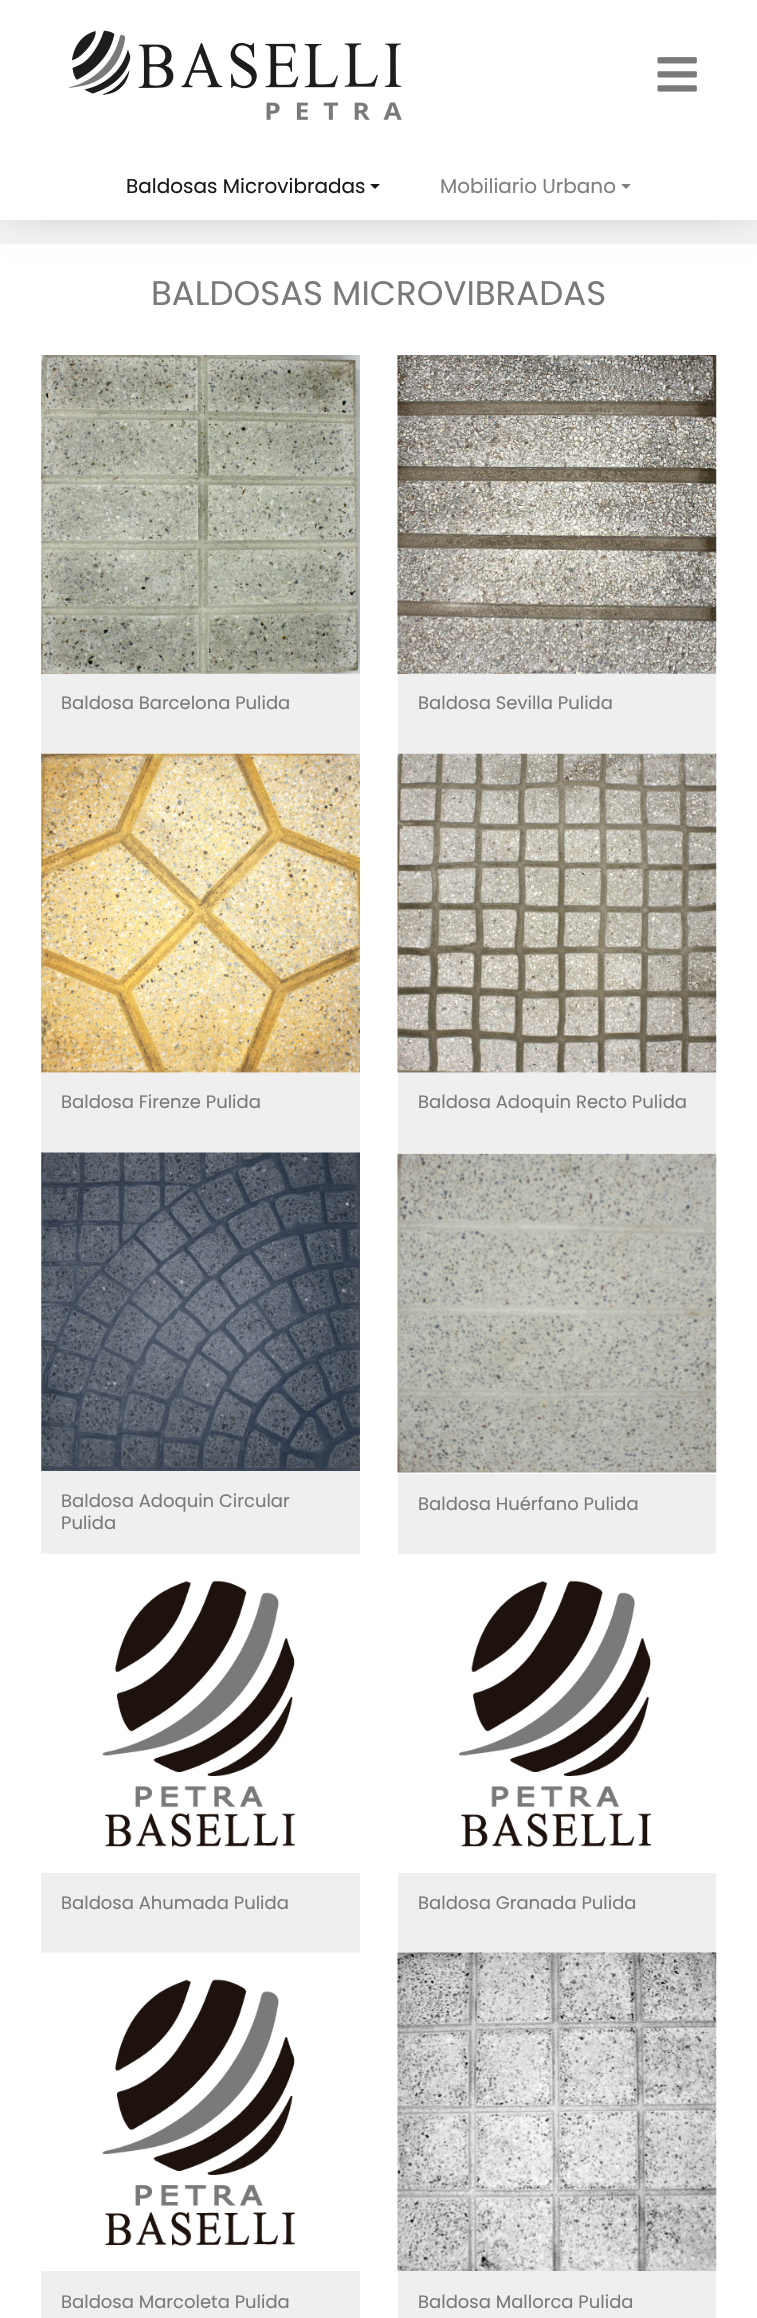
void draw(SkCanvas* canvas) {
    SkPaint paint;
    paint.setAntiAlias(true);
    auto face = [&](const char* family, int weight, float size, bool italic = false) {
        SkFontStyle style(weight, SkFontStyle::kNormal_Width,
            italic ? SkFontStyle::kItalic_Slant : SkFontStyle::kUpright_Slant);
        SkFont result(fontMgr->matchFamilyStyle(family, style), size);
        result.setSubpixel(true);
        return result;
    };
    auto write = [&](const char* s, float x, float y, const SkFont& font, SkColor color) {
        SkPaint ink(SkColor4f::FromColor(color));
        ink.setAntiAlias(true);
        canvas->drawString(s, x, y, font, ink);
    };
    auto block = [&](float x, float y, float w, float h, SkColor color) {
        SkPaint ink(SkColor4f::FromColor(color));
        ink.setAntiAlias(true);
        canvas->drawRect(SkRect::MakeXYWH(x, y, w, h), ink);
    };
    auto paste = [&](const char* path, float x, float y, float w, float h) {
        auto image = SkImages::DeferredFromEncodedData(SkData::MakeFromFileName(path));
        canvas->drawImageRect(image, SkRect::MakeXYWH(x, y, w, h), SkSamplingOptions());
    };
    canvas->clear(SK_ColorWHITE);
    block(0, 220, 757, 24, SkColorSetRGB(243, 243, 243));
    paint.setColor(SkColorSetARGB(61, 0, 0, 0));
    paint.setMaskFilter(SkMaskFilter::MakeBlur(kNormal_SkBlurStyle, 18));
    canvas->drawRect(SkRect::MakeXYWH(9, 8, 740, 202), paint);
    paint.setMaskFilter(nullptr);
    block(0, 0, 757, 220, SK_ColorWHITE);
    paste("pic1.png", 68, 30, 334, 90);
    paste("pic2.png", 657, 57, 40, 35);
    auto kFont1 = face("Poppins", 400, 20);
    write("Baldosas Microvibradas", 126, 193, kFont1, SkColorSetRGB(26, 26, 26));
    paint.setColor(SkColorSetRGB(26, 26, 26));
    canvas->drawPath(SkPathBuilder().moveTo(370, 184).lineTo(380, 184).lineTo(375, 189).close().detach(), paint);
    write("Mobiliario Urbano", 440, 193, kFont1, SkColorSetRGB(128, 128, 128));
    paint.setColor(SkColorSetRGB(128, 128, 128));
    canvas->drawPath(SkPathBuilder().moveTo(621, 184).lineTo(631, 184).lineTo(626, 189).close().detach(), paint);
    auto kFont2 = face("Poppins", 400, 34);
    write("BALDOSAS MICROVIBRADAS", 151, 305, kFont2, SkColorSetRGB(122, 122, 122));
    paste("pic3.png", 41, 355, 319, 319);
    block(41, 674, 319, 80, SkColorSetRGB(239, 239, 239));
    auto kFont3 = face("Poppins", 400, 18);
    write("Baldosa Barcelona Pulida", 61, 709, kFont3, SkColorSetRGB(122, 122, 122));
    paste("pic4.png", 397, 355, 320, 319);
    block(398, 674, 318, 80, SkColorSetRGB(239, 239, 239));
    write("Baldosa Sevilla Pulida", 418, 709, kFont3, SkColorSetRGB(122, 122, 122));
    paste("pic5.png", 41, 753, 319, 320);
    block(41, 1073, 319, 80, SkColorSetRGB(239, 239, 239));
    write("Baldosa Firenze Pulida", 61, 1108, kFont3, SkColorSetRGB(122, 122, 122));
    paste("pic6.png", 397, 753, 320, 320);
    block(398, 1073, 318, 80, SkColorSetRGB(239, 239, 239));
    write("Baldosa Adoquin Recto Pulida", 418, 1108, kFont3, SkColorSetRGB(122, 122, 122));
    paste("pic7.png", 41, 1152, 319, 319);
    block(41, 1471, 319, 83, SkColorSetRGB(239, 239, 239));
    write("Baldosa Adoquin Circular", 61, 1507, kFont3, SkColorSetRGB(122, 122, 122));
    write("Pulida", 61, 1529, kFont3, SkColorSetRGB(122, 122, 122));
    paste("pic8.png", 397, 1153, 320, 320);
    block(398, 1474, 318, 80, SkColorSetRGB(239, 239, 239));
    write("Baldosa Huérfano Pulida", 418, 1510, kFont3, SkColorSetRGB(122, 122, 122));
    paste("pic9.png", 42, 1553, 318, 294);
    block(41, 1873, 319, 80, SkColorSetRGB(239, 239, 239));
    write("Baldosa Ahumada Pulida", 61, 1909, kFont3, SkColorSetRGB(122, 122, 122));
    paste("pic10.png", 398, 1553, 318, 294);
    block(398, 1873, 318, 80, SkColorSetRGB(239, 239, 239));
    write("Baldosa Granada Pulida", 418, 1909, kFont3, SkColorSetRGB(122, 122, 122));
    paste("pic11.png", 41, 1952, 319, 294);
    block(41, 2271, 319, 47, SkColorSetRGB(239, 239, 239));
    write("Baldosa Marcoleta Pulida", 61, 2308, kFont3, SkColorSetRGB(122, 122, 122));
    paste("pic12.png", 397, 1952, 320, 320);
    block(398, 2271, 318, 47, SkColorSetRGB(239, 239, 239));
    write("Baldosa Mallorca Pulida", 418, 2308, kFont3, SkColorSetRGB(122, 122, 122));
}
